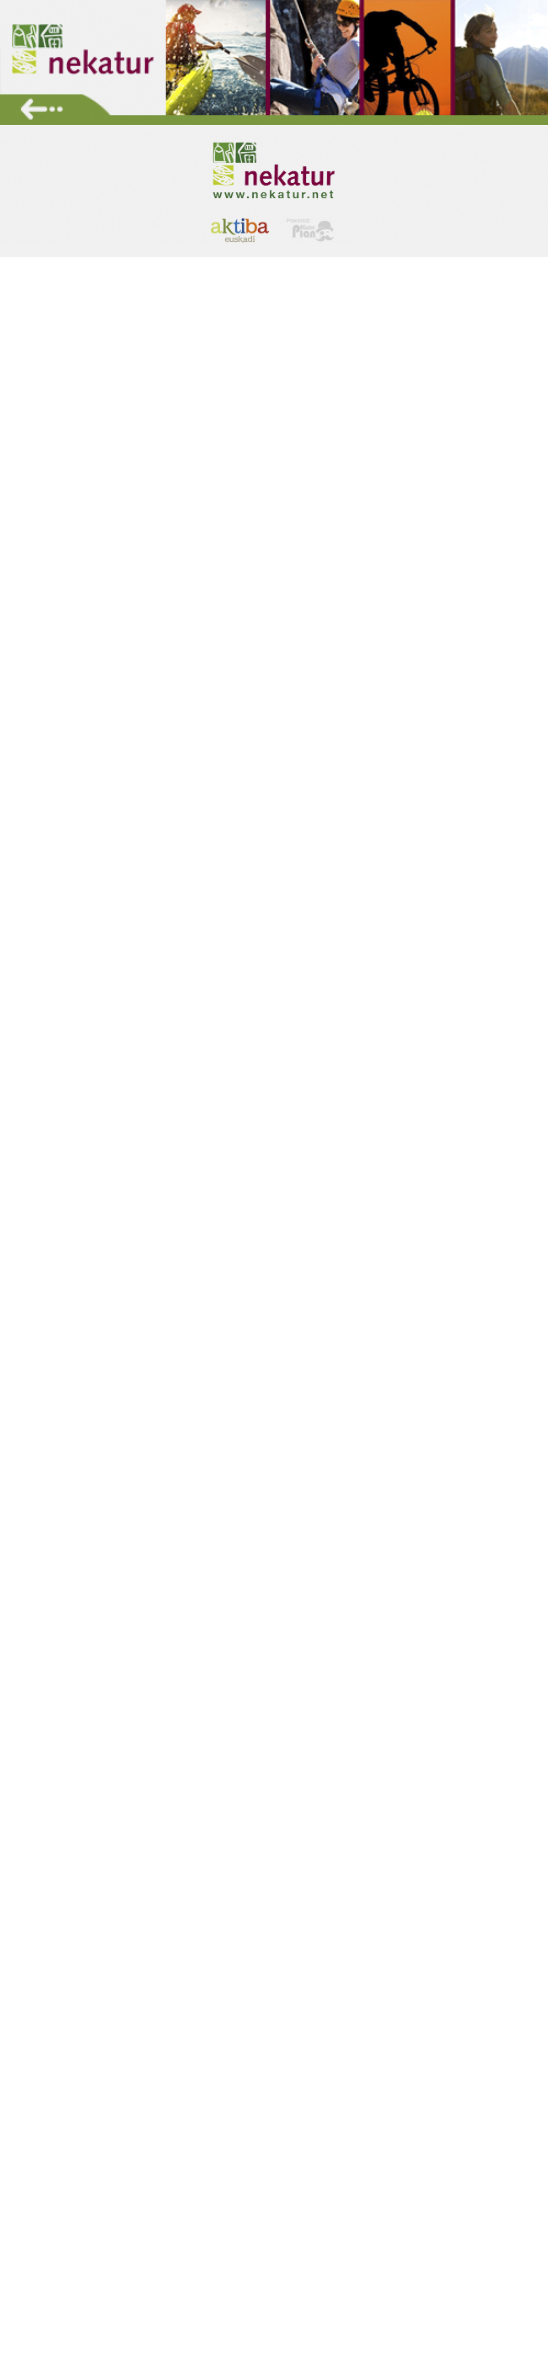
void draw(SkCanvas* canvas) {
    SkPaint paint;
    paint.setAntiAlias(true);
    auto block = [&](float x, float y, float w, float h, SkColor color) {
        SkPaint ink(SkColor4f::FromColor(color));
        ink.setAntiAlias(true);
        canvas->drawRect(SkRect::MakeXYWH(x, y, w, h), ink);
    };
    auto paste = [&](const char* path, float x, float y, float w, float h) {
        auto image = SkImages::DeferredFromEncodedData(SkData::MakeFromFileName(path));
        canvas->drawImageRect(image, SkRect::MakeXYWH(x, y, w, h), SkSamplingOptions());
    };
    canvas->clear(SK_ColorWHITE);
    paste("pic1.png", 0, 0, 548, 125);
    block(0, 243, 548, 14, SkColorSetRGB(241, 241, 241));
    paste("pic2.png", 0, 125, 548, 118);
}
